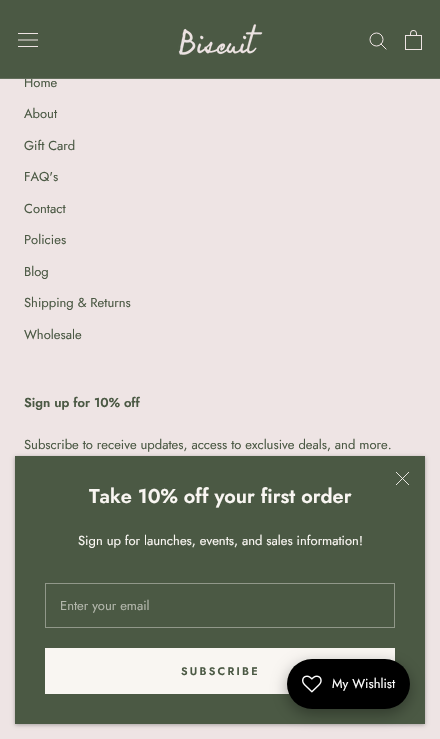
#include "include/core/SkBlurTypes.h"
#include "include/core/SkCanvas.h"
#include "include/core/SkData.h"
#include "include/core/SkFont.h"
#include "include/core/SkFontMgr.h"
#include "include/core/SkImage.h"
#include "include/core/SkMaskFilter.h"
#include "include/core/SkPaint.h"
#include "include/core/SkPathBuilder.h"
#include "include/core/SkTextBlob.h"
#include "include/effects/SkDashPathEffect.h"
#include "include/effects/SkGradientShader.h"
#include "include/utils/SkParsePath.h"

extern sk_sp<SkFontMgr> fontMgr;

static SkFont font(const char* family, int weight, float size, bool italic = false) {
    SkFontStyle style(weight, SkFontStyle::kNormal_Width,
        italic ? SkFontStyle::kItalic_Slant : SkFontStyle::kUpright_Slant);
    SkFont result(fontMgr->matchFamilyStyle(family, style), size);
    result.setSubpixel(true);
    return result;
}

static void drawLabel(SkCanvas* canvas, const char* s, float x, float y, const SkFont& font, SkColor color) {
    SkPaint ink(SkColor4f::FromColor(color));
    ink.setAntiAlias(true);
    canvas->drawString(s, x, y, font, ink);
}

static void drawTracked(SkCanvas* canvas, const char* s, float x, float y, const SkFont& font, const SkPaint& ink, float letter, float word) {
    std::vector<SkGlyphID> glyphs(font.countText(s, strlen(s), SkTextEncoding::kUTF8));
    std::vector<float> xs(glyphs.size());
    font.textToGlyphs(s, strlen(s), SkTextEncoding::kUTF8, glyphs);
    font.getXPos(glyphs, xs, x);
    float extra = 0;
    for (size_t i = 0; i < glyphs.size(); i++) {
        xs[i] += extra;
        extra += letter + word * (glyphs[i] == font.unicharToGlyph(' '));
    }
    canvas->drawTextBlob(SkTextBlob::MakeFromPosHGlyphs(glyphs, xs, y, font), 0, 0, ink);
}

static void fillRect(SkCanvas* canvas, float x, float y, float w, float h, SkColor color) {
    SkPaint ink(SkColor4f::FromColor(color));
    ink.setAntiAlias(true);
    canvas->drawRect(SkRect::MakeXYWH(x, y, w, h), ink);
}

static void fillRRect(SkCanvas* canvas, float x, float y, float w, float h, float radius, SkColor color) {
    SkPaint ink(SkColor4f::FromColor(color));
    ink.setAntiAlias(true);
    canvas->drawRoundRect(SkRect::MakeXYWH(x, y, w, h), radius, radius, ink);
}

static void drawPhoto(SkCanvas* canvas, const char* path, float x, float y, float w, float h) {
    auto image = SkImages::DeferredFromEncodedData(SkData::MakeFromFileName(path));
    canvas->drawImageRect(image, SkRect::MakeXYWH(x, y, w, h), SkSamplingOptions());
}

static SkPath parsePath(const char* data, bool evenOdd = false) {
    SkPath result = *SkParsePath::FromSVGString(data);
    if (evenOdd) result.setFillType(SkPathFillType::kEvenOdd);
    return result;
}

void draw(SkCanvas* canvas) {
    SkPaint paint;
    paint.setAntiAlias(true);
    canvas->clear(0xFFEEE4E4);
    fillRect(canvas, 0, 0, 440, 78, 0xFF4B5944);
    SkFont font1 = font("Jost", 400, 13);
    drawLabel(canvas, "Home", 24, 87, font1, 0xFF4B5944);
    fillRect(canvas, 0, 78, 440, 1, 0xFF636E5C);
    drawPhoto(canvas, "assets/img1.png", 18, 33, 20, 14);
    drawPhoto(canvas, "assets/img2.png", 178, 24, 85, 31);
    paint.setStroke(true);
    paint.setStrokeWidth(1);
    paint.setStrokeCap(SkPaint::kSquare_Cap);
    paint.setColor(0xFFEEE4E4);
    canvas->drawPath(parsePath("M386 49L381 44"), paint);
    paint.setStrokeCap(SkPaint::kButt_Cap);
    canvas->drawCircle(376.5f, 39.5f, 6.5f, paint);
    drawPhoto(canvas, "assets/img3.png", 405, 30, 17, 20);
    drawLabel(canvas, "About", 24, 118, font1, 0xFF4B5944);
    drawLabel(canvas, "Gift Card", 24, 150, font1, 0xFF4B5944);
    drawLabel(canvas, "FAQ's", 24, 181, font1, 0xFF4B5944);
    drawLabel(canvas, "Contact", 24, 213, font1, 0xFF4B5944);
    drawLabel(canvas, "Policies", 24, 244, font1, 0xFF4B5944);
    drawLabel(canvas, "Blog", 24, 276, font1, 0xFF4B5944);
    drawLabel(canvas, "Shipping & Returns", 24, 307, font1, 0xFF4B5944);
    drawLabel(canvas, "Wholesale", 24, 339, font1, 0xFF4B5944);
    SkFont font2 = font("Jost", 600, 13);
    drawLabel(canvas, "Sign up for 10% off", 24, 407, font2, 0xFF4B5944);
    drawLabel(canvas, "Subscribe to receive updates, access to exclusive deals, and more.", 24, 449, font1, 0xFF4B5944);
    paint.setStroke(false);
    paint.setColor(0x4D000000);
    paint.setMaskFilter(SkMaskFilter::MakeBlur(kNormal_SkBlurStyle, 2));
    canvas->drawRect(SkRect::MakeXYWH(15, 457, 410, 268), paint);
    paint.setMaskFilter(nullptr);
    fillRect(canvas, 15, 456, 410, 268, 0xFF4B5944);
    paint.setStroke(true);
    paint.setStrokeWidth(0.9f);
    paint.setColor(0xFFF9F6F2);
    canvas->drawPath(parsePath("M409 472L396 485M409 485L396 472"), paint);
    SkFont font3 = font("Jost", 600, 20);
    drawLabel(canvas, "Take 10% off your first order", 89, 503, font3, 0xFFF9F6F2);
    drawLabel(canvas, "Sign up for launches, events, and sales information!", 78, 545, font1, 0xFFF9F6F2);
    paint.setStrokeWidth(1);
    paint.setColor(0xFF91988A);
    canvas->drawRect(SkRect::MakeXYWH(45.5f, 583.5f, 349, 44), paint);
    drawLabel(canvas, "Enter your email", 60, 610, font1, 0xFFB3B7AC);
    paint.setColor(0xFFF9F6F2);
    canvas->drawRect(SkRect::MakeXYWH(45.5f, 648.5f, 349, 45), paint);
    fillRect(canvas, 46, 649, 348, 44, 0xFFF9F6F2);
    SkFont font4 = font("Jost", 600, 11);
    paint.setStroke(false);
    paint.setColor(0xFF4B5944);
    drawTracked(canvas, "SUBSCRIBE", 181, 675, font4, paint, 2.25f, 0);
    paint.setColor(0x59000000);
    paint.setMaskFilter(SkMaskFilter::MakeBlur(kNormal_SkBlurStyle, 7.5f));
    canvas->drawRoundRect(SkRect::MakeXYWH(287, 664, 123, 50), 25, 25, paint);
    paint.setMaskFilter(nullptr);
    fillRRect(canvas, 287, 659, 123, 50, 25, 0xFF000000);
    drawPhoto(canvas, "assets/img4.png", 302, 675, 20, 18);
    drawLabel(canvas, "My Wishlist", 332, 688, font1, 0xFFFFFFFF);
}
